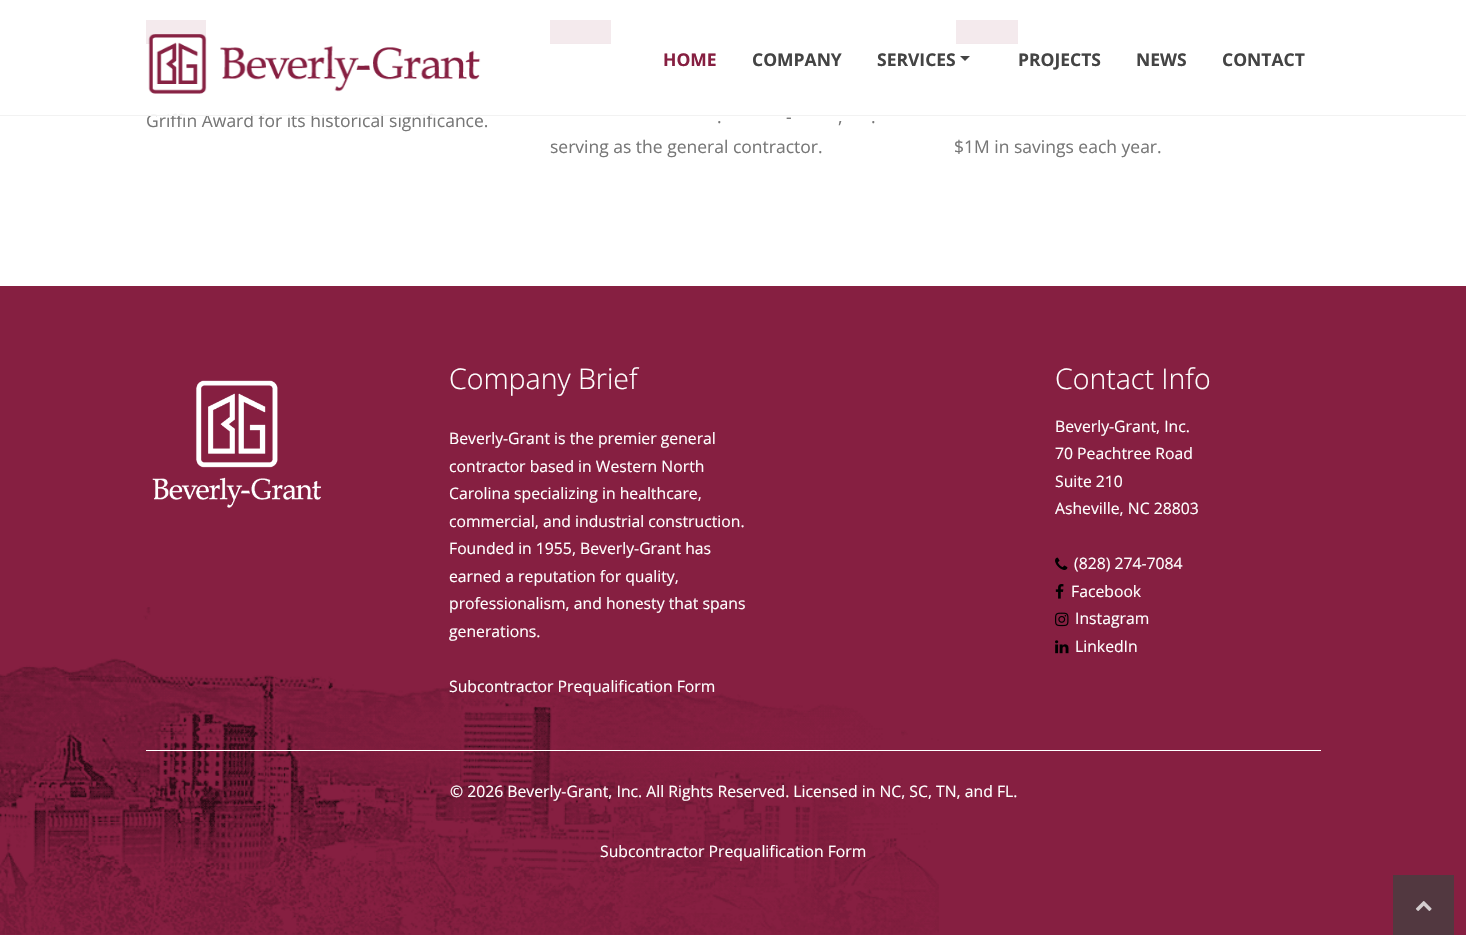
#include "include/core/SkBlurTypes.h"
#include "include/core/SkCanvas.h"
#include "include/core/SkData.h"
#include "include/core/SkFont.h"
#include "include/core/SkFontMgr.h"
#include "include/core/SkImage.h"
#include "include/core/SkMaskFilter.h"
#include "include/core/SkPaint.h"
#include "include/core/SkPathBuilder.h"
#include "include/core/SkTextBlob.h"
#include "include/effects/SkDashPathEffect.h"
#include "include/effects/SkGradientShader.h"
#include "include/utils/SkParsePath.h"

extern sk_sp<SkFontMgr> fontMgr;

static SkFont font(const char* family, int weight, float size, bool italic = false) {
    SkFontStyle style(weight, SkFontStyle::kNormal_Width,
        italic ? SkFontStyle::kItalic_Slant : SkFontStyle::kUpright_Slant);
    SkFont result(fontMgr->matchFamilyStyle(family, style), size);
    result.setSubpixel(true);
    return result;
}

static void drawLabel(SkCanvas* canvas, const char* s, float x, float y, const SkFont& font, SkColor color) {
    SkPaint ink(SkColor4f::FromColor(color));
    ink.setAntiAlias(true);
    canvas->drawString(s, x, y, font, ink);
}

static void fillRect(SkCanvas* canvas, float x, float y, float w, float h, SkColor color) {
    SkPaint ink(SkColor4f::FromColor(color));
    ink.setAntiAlias(true);
    canvas->drawRect(SkRect::MakeXYWH(x, y, w, h), ink);
}

static void drawPhoto(SkCanvas* canvas, const char* path, float x, float y, float w, float h) {
    auto image = SkImages::DeferredFromEncodedData(SkData::MakeFromFileName(path));
    canvas->drawImageRect(image, SkRect::MakeXYWH(x, y, w, h), SkSamplingOptions());
}

static SkPath parsePath(const char* data, bool evenOdd = false) {
    SkPath result = *SkParsePath::FromSVGString(data);
    if (evenOdd) result.setFillType(SkPathFillType::kEvenOdd);
    return result;
}

void draw(SkCanvas* canvas) {
    SkPaint paint;
    paint.setAntiAlias(true);
    canvas->clear(0xFFFFFFFF);
    fillRect(canvas, 146, 0, 60, 16, 0xFFF7F7F7);
    fillRect(canvas, 146, 20, 60, 23, 0xFF861F41);
    fillRect(canvas, 146, 43, 60, 1, 0xFF7D1D3C);
    SkFont font1 = font("Open Sans", 400, 17.5f);
    drawLabel(canvas, "Griffin Award for its historical significance.", 146, 127, font1, 0xFF777777);
    fillRect(canvas, 550, 0, 61, 16, 0xFFF7F7F7);
    fillRect(canvas, 550, 20, 61, 23, 0xFF861F41);
    fillRect(canvas, 550, 43, 61, 1, 0xFF7D1D3C);
    fillRect(canvas, 954, 0, 65, 16, 0xFFF7F7F7);
    fillRect(canvas, 956, 20, 62, 23, 0xFF861F41);
    fillRect(canvas, 956, 43, 62, 1, 0xFF7D1D3C);
    fillRect(canvas, 146, 0, 873, 116, 0xE6FFFFFF);
    fillRect(canvas, 0, 115, 1466, 1, 0xE6F1F1F1);
    drawPhoto(canvas, "assets/img1.png", 148, 34, 333, 60);
    SkFont font2 = font("Open Sans", 700, 17.5f);
    drawLabel(canvas, "HOME", 663, 66, font2, 0xFF861F41);
    drawLabel(canvas, "COMPANY", 752, 66, font2, 0xFF444444);
    drawLabel(canvas, "SERVICES", 877, 66, font2, 0xFF444444);
    paint.setColor(0xFF444444);
    canvas->drawPath(parsePath("M960 56H970L965 61Z"), paint);
    drawLabel(canvas, "PROJECTS", 1018, 66, font2, 0xFF444444);
    drawLabel(canvas, "NEWS", 1136, 66, font2, 0xFF444444);
    drawLabel(canvas, "CONTACT", 1222, 66, font2, 0xFF444444);
    drawLabel(canvas, "-", 786, 123, font1, 0xFF777777);
    drawLabel(canvas, ".", 717, 123, font1, 0xFF777777);
    drawLabel(canvas, ",", 838, 123, font1, 0xFF777777);
    drawLabel(canvas, ".", 871, 123, font1, 0xFF777777);
    drawLabel(canvas, "serving as the general contractor.", 550, 153, font1, 0xFF777777);
    drawLabel(canvas, "$1M in savings each year.", 954, 153, font1, 0xFF777777);
    fillRect(canvas, 0, 286, 1466, 649, 0xFF861F41);
    drawPhoto(canvas, "assets/img2.png", 0, 607, 939, 328);
    drawPhoto(canvas, "assets/img3.png", 152, 380, 169, 128);
    SkFont font3 = font("Open Sans", 300, 28.5f);
    drawLabel(canvas, "Company Brief", 449, 389, font3, 0xFFFFFFFF);
    SkFont font4 = font("Open Sans", 400, 15.75f);
    drawLabel(canvas, "Beverly-Grant is the premier general", 449, 444, font4, 0xFFFFFFFF);
    drawLabel(canvas, "contractor based in Western North", 449, 472, font4, 0xFFFFFFFF);
    drawLabel(canvas, "Carolina specializing in healthcare,", 449, 499, font4, 0xFFFFFFFF);
    drawLabel(canvas, "commercial, and industrial construction.", 449, 527, font4, 0xFFFFFFFF);
    drawLabel(canvas, "Founded in 1955, Beverly-Grant has", 449, 554, font4, 0xFFFFFFFF);
    drawLabel(canvas, "earned a reputation for quality,", 449, 582, font4, 0xFFFFFFFF);
    drawLabel(canvas, "professionalism, and honesty that spans", 449, 609, font4, 0xFFFFFFFF);
    drawLabel(canvas, "generations.", 449, 637, font4, 0xFFFFFFFF);
    drawLabel(canvas, "Subcontractor Prequalification Form", 449, 692, font4, 0xFFFFFFFF);
    drawLabel(canvas, "Contact Info", 1055, 389, font3, 0xFFFFFFFF);
    drawLabel(canvas, "Beverly-Grant, Inc.", 1055, 432, font4, 0xFFFFFFFF);
    drawLabel(canvas, "70 Peachtree Road", 1055, 459, font4, 0xFFFFFFFF);
    drawLabel(canvas, "Suite 210", 1055, 487, font4, 0xFFFFFFFF);
    drawLabel(canvas, "Asheville, NC 28803", 1055, 514, font4, 0xFFFFFFFF);
    drawPhoto(canvas, "assets/img4.png", 1055, 557, 13, 13);
    drawLabel(canvas, "(828) 274-7084", 1074, 569, font4, 0xFFFFFFFF);
    drawPhoto(canvas, "assets/img5.png", 1055, 584, 9, 15);
    drawLabel(canvas, "Facebook", 1071, 597, font4, 0xFFFFFFFF);
    drawPhoto(canvas, "assets/img6.png", 1055, 612, 14, 15);
    drawLabel(canvas, "Instagram", 1075, 624, font4, 0xFFFFFFFF);
    drawPhoto(canvas, "assets/img7.png", 1055, 640, 14, 14);
    drawLabel(canvas, "LinkedIn", 1075, 652, font4, 0xFFFFFFFF);
    fillRect(canvas, 146, 750, 1175, 1, 0xFFFFFFFF);
    drawLabel(canvas, "© 2026 Beverly-Grant, Inc. All Rights Reserved. Licensed in NC, SC, TN, and FL.", 450, 797, font4, 0xFFFFFFFF);
    drawLabel(canvas, "Subcontractor Prequalification Form", 600, 857, font4, 0xFFFFFFFF);
    fillRect(canvas, 1393, 875, 61, 60, 0xFF523840);
    drawPhoto(canvas, "assets/img8.png", 1415, 901, 17, 10);
}
